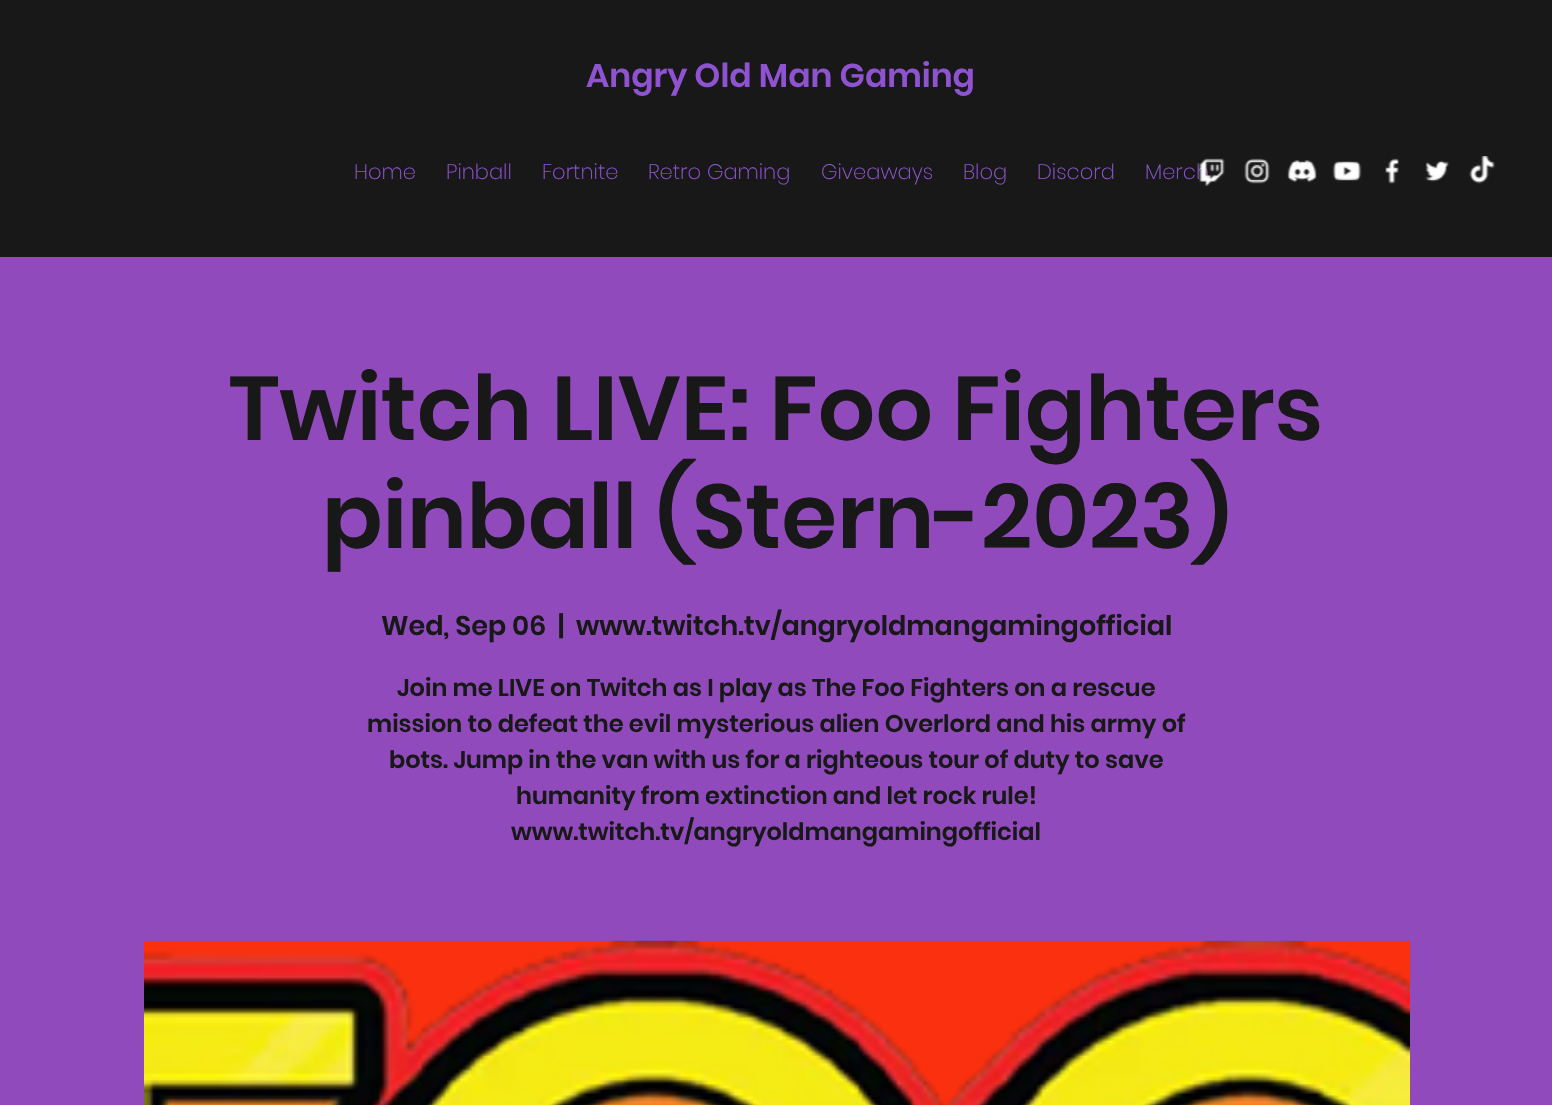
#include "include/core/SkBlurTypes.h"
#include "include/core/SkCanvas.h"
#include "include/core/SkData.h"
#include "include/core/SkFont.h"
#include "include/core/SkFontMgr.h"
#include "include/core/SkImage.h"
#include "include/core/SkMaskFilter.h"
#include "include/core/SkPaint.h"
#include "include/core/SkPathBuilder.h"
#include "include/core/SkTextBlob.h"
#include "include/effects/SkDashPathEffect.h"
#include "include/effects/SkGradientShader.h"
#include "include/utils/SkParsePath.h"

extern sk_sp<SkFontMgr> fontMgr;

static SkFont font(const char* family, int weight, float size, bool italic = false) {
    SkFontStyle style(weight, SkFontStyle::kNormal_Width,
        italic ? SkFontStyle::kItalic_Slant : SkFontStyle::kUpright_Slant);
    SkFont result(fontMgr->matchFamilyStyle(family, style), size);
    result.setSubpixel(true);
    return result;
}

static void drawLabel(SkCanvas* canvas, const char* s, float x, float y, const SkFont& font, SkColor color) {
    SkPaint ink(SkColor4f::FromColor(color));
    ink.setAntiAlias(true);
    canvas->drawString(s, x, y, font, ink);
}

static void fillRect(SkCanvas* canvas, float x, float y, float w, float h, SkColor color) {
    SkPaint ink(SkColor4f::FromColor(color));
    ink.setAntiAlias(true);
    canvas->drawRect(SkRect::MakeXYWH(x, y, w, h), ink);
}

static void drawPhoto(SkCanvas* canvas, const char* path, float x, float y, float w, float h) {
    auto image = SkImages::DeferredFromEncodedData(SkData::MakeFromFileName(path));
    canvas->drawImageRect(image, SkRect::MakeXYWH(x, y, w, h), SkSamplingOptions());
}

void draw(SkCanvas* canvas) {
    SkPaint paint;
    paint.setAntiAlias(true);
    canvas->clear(0xFF904ABC);
    fillRect(canvas, 0, 0, 1552, 257, 0xFF181818);
    SkFont font1 = font("Poppins", 600, 33);
    drawLabel(canvas, "Angry Old Man Gaming", 586, 87, font1, 0xFF8F53D1);
    SkFont font2 = font("Poppins", 200, 21);
    drawLabel(canvas, "Home", 354, 179, font2, 0xFF8F53D1);
    drawLabel(canvas, "Pinball", 446, 179, font2, 0xFF8F53D1);
    drawLabel(canvas, "Fortnite", 542, 179, font2, 0xFF8F53D1);
    drawLabel(canvas, "Retro Gaming", 648, 179, font2, 0xFF8F53D1);
    drawLabel(canvas, "Giveaways", 821, 179, font2, 0xFF8F53D1);
    drawLabel(canvas, "Blog", 963, 179, font2, 0xFF8F53D1);
    drawLabel(canvas, "Discord", 1037, 179, font2, 0xFF8F53D1);
    drawLabel(canvas, "Merch", 1145, 179, font2, 0xFF8F53D1);
    drawPhoto(canvas, "assets/img1.png", 1199, 158, 26, 28);
    drawPhoto(canvas, "assets/img2.png", 1244, 158, 26, 26);
    drawPhoto(canvas, "assets/img3.png", 1287, 160, 30, 22);
    drawPhoto(canvas, "assets/img4.png", 1332, 161, 30, 20);
    drawPhoto(canvas, "assets/img5.png", 1385, 158, 14, 26);
    drawPhoto(canvas, "assets/img6.png", 1425, 160, 25, 22);
    drawPhoto(canvas, "assets/img7.png", 1469, 156, 26, 28);
    SkFont font3 = font("Poppins", 600, 90);
    drawLabel(canvas, "Twitch LIVE: Foo Fighters", 229, 440, font3, 0xFF181818);
    drawLabel(canvas, "pinball (Stern-2023)", 322, 548, font3, 0xFF181818);
    SkFont font4 = font("Poppins", 600, 27);
    drawLabel(canvas, "Wed, Sep 06", 381, 635, font4, 0xFF181818);
    drawLabel(canvas, "|", 558, 635, font4, 0xFF181818);
    drawLabel(canvas, "www.twitch.tv/angryoldmangamingofficial", 576, 635, font4, 0xFF181818);
    SkFont font5 = font("Poppins", 600, 24);
    drawLabel(canvas, "Join me LIVE on Twitch as I play as The Foo Fighters on a rescue", 397, 696, font5, 0xFF181818);
    drawLabel(canvas, "mission to defeat the evil mysterious alien Overlord and his army of", 367, 732, font5, 0xFF181818);
    drawLabel(canvas, "bots. Jump in the van with us for a righteous tour of duty to save", 389, 768, font5, 0xFF181818);
    drawLabel(canvas, "humanity from extinction and let rock rule!", 516, 804, font5, 0xFF181818);
    drawLabel(canvas, "www.twitch.tv/angryoldmangamingofficial", 511, 840, font5, 0xFF181818);
    fillRect(canvas, 144, 941, 1266, 164, 0xFFFA300F);
    drawPhoto(canvas, "assets/img8.png", 144, 940, 1266, 165);
}
